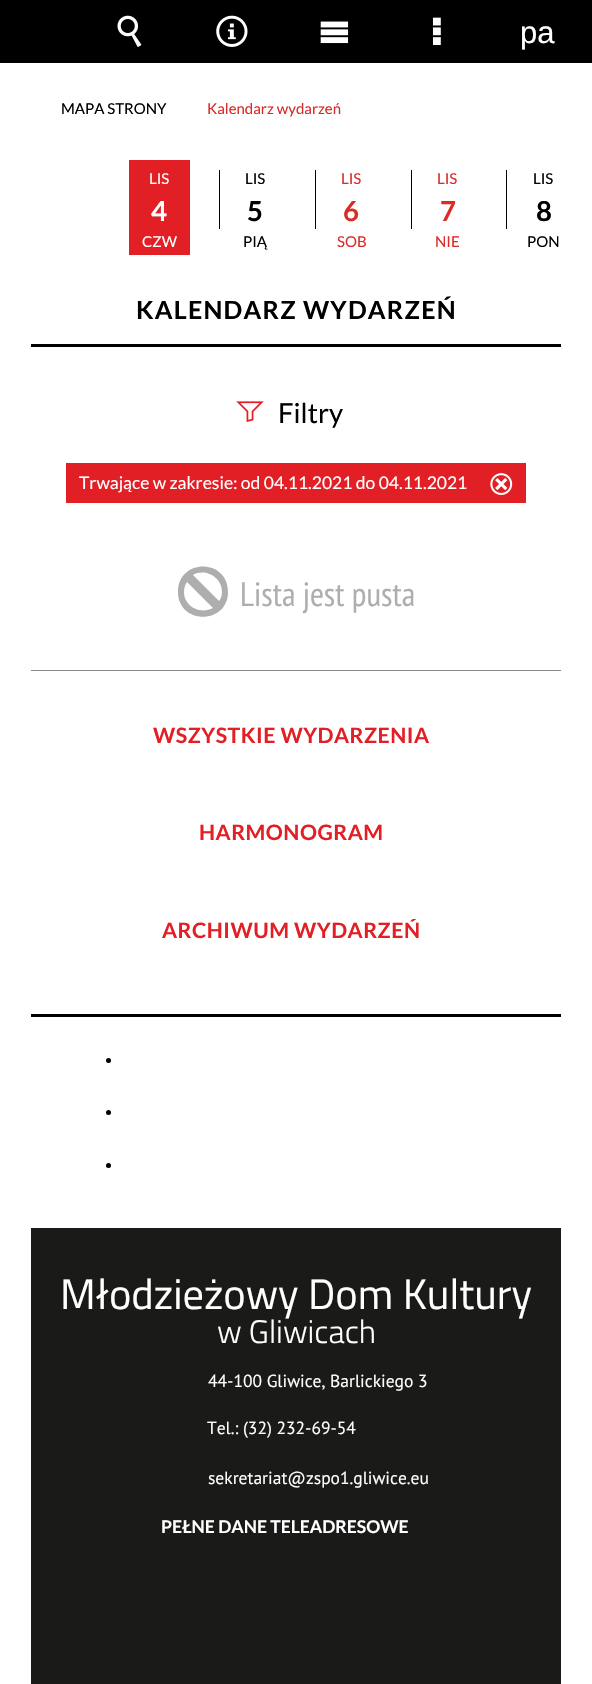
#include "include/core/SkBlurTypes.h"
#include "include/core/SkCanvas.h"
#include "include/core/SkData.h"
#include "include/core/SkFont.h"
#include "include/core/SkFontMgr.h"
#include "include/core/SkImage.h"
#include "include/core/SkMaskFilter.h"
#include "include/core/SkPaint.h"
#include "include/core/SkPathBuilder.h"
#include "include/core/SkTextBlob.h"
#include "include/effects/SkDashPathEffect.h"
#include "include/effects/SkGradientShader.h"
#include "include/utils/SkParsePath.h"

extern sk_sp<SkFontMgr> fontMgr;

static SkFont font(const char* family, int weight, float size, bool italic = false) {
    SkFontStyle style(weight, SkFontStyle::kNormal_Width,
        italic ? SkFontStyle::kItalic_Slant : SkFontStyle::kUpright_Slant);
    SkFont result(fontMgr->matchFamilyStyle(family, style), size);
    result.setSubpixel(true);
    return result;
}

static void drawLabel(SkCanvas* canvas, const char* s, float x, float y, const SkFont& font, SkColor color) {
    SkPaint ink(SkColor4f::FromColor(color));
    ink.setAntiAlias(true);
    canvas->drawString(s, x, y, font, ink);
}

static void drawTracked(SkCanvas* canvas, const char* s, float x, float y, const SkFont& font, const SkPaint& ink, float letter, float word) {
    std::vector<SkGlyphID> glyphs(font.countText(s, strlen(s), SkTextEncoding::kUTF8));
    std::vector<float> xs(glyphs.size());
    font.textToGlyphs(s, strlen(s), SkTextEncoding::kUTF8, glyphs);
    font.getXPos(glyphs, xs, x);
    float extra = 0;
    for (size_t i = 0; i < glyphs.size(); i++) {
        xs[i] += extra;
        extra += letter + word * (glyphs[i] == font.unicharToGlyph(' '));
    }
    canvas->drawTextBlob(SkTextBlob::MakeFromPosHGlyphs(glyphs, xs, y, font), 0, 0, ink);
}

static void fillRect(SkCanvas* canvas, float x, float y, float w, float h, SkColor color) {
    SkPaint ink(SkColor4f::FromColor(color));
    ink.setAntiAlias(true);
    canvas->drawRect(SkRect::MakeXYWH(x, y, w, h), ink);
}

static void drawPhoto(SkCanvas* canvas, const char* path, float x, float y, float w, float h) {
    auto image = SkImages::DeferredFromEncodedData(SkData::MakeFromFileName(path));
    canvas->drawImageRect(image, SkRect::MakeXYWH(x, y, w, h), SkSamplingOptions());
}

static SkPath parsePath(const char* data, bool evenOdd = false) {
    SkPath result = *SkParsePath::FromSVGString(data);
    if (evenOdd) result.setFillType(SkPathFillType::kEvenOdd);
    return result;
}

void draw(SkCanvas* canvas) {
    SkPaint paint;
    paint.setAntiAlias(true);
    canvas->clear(0xFFFFFFFF);
    fillRect(canvas, 0, 0, 592, 63, 0xFF000000);
    drawPhoto(canvas, "assets/img1.png", 117, 15, 25, 32);
    drawPhoto(canvas, "assets/img2.png", 216, 15, 32, 32);
    drawPhoto(canvas, "assets/img3.png", 320, 21, 29, 23);
    drawPhoto(canvas, "assets/img4.png", 432, 17, 9, 28);
    SkFont font1 = font("Liberation Sans", 400, 31);
    drawLabel(canvas, "pa", 520, 43, font1, 0xFFFFFFFF);
    SkFont font2 = font("Lato", 400, 15);
    drawLabel(canvas, "MAPA STRONY", 61, 114, font2, 0xFF000000);
    drawLabel(canvas, "Kalendarz wydarzeń", 207, 114, font2, 0xFFD92C26);
    fillRect(canvas, 129, 160, 61, 95, 0xFFE21F25);
    drawLabel(canvas, "LIS", 149, 184, font2, 0xFFFFFFFF);
    SkFont font3 = font("Lato", 700, 27.5f);
    drawLabel(canvas, "4", 151, 221, font3, 0xFFFFFFFF);
    drawLabel(canvas, "CZW", 142, 247, font2, 0xFFFFFFFF);
    fillRect(canvas, 219, 170, 1, 59, 0xFF000000);
    drawLabel(canvas, "LIS", 245, 184, font2, 0xFF000000);
    drawLabel(canvas, "5", 247, 221, font3, 0xFF000000);
    drawLabel(canvas, "PIĄ", 243, 247, font2, 0xFF000000);
    fillRect(canvas, 315, 170, 1, 59, 0xFF000000);
    drawLabel(canvas, "LIS", 341, 184, font2, 0xFFD92C26);
    drawLabel(canvas, "6", 343, 221, font3, 0xFFD92C26);
    drawLabel(canvas, "SOB", 337, 247, font2, 0xFFD92C26);
    fillRect(canvas, 411, 170, 1, 59, 0xFF000000);
    drawLabel(canvas, "LIS", 437, 184, font2, 0xFFD92C26);
    drawLabel(canvas, "7", 440, 221, font3, 0xFFD92C26);
    drawLabel(canvas, "NIE", 435, 247, font2, 0xFFD92C26);
    fillRect(canvas, 506, 170, 1, 59, 0xFF000000);
    drawLabel(canvas, "LIS", 533, 184, font2, 0xFF000000);
    drawLabel(canvas, "8", 536, 221, font3, 0xFF000000);
    drawLabel(canvas, "PON", 527, 247, font2, 0xFF000000);
    fillRect(canvas, 31, 344, 530, 3, 0xFF000000);
    SkFont font4 = font("Lato", 700, 25);
    paint.setColor(0xFF000000);
    drawTracked(canvas, "KALENDARZ WYDARZEŃ", 136, 319, font4, paint, 1.25f, 0);
    drawPhoto(canvas, "assets/img5.png", 236, 401, 28, 21);
    SkFont font5 = font("Lato", 400, 27.5f);
    drawLabel(canvas, "Filtry", 278, 423, font5, 0xFF000000);
    fillRect(canvas, 66, 463, 460, 40, 0xFFE21F25);
    SkFont font6 = font("Lato", 400, 17.5f);
    drawLabel(canvas, "Trwające w zakresie: od 04.11.2021 do 04.11.2021", 79, 489, font6, 0xFFFFFFFF);
    drawPhoto(canvas, "assets/img6.png", 490, 473, 23, 22);
    paint.setColor(0xFFAEAEAE);
    canvas->drawPath(parsePath("M178 592C178 558 228 558 228 592C228 625 178 625 178 592ZM222 592C222 577 205 568 193 575L219 601C221 599 222 595 222 592ZM184 592C184 606 200 615 213 608L187 582C185 585 184 588 184 592Z"), paint);
    SkFont font7 = font("PT Sans Narrow", 400, 33.75f);
    drawLabel(canvas, "Lista jest pusta", 240, 606, font7, 0xFFAEAEAE);
    fillRect(canvas, 31, 670, 530, 1, 0xFF898989);
    SkFont font8 = font("Lato", 700, 21.25f);
    paint.setColor(0xFFE21F25);
    drawTracked(canvas, "WSZYSTKIE WYDARZENIA", 153, 743, font8, paint, 0.5f, 0);
    drawTracked(canvas, "HARMONOGRAM", 199, 840, font8, paint, 0.5f, 0);
    drawTracked(canvas, "ARCHIWUM WYDARZEŃ", 162, 938, font8, paint, 0.5f, 0);
    fillRect(canvas, 31, 1014, 530, 3, 0xFF000000);
    paint.setColor(0xFF000000);
    canvas->drawCircle(108.5f, 1060.5f, 2.5f, paint);
    canvas->drawCircle(108.5f, 1112.5f, 2.5f, paint);
    canvas->drawCircle(108.5f, 1165.5f, 2.5f, paint);
    fillRect(canvas, 31, 1228, 530, 456, 0xFF1A1A18);
    SkFont font9 = font("Titillium Web", 400, 42.5f);
    drawLabel(canvas, "Młodzieżowy Dom Kultury", 60, 1309, font9, 0xFFFFFFFF);
    SkFont font10 = font("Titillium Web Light", 300, 32.5f);
    drawLabel(canvas, "w Gliwicach", 217, 1343, font10, 0xFFFFFFFF);
    SkFont font11 = font("PT Sans", 400, 17.5f);
    drawLabel(canvas, "44-100 Gliwice, Barlickiego 3", 208, 1387, font11, 0xFFFFFFFF);
    drawLabel(canvas, "Tel.: (32) 232-69-54", 207, 1434, font11, 0xFFFFFFFF);
    drawLabel(canvas, "sekretariat@zspo1.gliwice.eu", 208, 1484, font11, 0xFFFFFFFF);
    SkFont font12 = font("Lato", 700, 17.5f);
    drawLabel(canvas, "PEŁNE DANE TELEADRESOWE", 161, 1533, font12, 0xFFFFFFFF);
}
